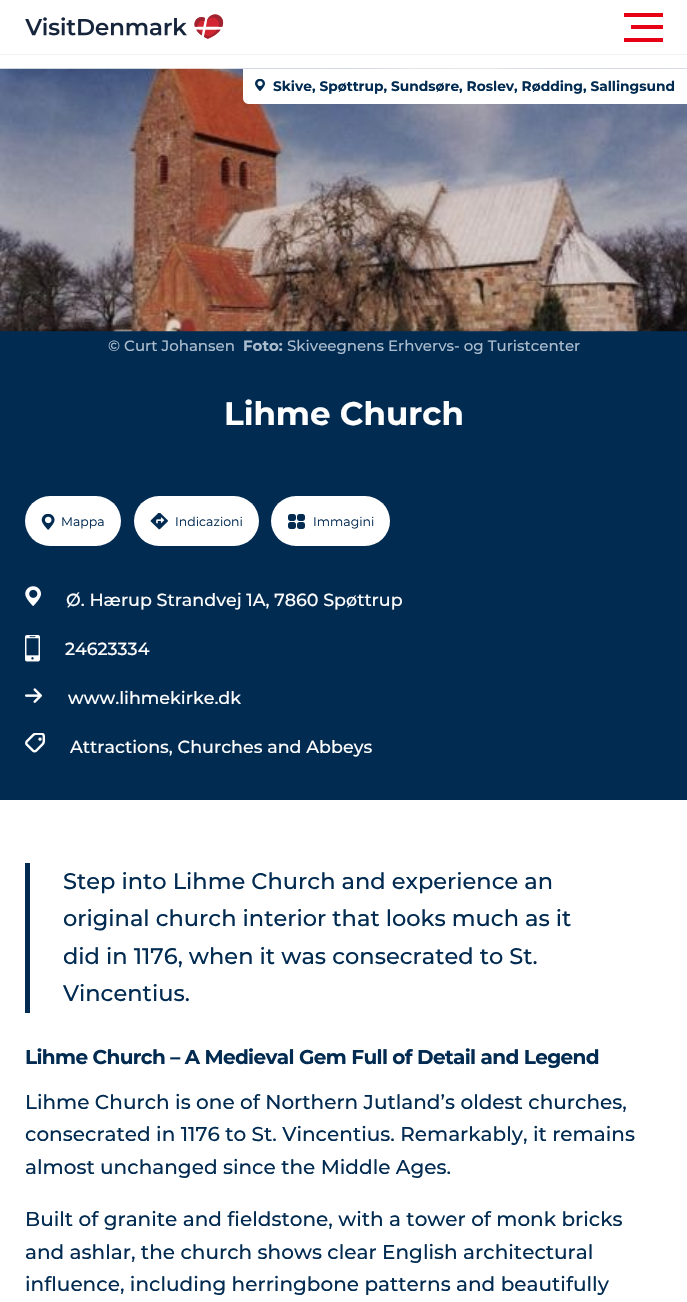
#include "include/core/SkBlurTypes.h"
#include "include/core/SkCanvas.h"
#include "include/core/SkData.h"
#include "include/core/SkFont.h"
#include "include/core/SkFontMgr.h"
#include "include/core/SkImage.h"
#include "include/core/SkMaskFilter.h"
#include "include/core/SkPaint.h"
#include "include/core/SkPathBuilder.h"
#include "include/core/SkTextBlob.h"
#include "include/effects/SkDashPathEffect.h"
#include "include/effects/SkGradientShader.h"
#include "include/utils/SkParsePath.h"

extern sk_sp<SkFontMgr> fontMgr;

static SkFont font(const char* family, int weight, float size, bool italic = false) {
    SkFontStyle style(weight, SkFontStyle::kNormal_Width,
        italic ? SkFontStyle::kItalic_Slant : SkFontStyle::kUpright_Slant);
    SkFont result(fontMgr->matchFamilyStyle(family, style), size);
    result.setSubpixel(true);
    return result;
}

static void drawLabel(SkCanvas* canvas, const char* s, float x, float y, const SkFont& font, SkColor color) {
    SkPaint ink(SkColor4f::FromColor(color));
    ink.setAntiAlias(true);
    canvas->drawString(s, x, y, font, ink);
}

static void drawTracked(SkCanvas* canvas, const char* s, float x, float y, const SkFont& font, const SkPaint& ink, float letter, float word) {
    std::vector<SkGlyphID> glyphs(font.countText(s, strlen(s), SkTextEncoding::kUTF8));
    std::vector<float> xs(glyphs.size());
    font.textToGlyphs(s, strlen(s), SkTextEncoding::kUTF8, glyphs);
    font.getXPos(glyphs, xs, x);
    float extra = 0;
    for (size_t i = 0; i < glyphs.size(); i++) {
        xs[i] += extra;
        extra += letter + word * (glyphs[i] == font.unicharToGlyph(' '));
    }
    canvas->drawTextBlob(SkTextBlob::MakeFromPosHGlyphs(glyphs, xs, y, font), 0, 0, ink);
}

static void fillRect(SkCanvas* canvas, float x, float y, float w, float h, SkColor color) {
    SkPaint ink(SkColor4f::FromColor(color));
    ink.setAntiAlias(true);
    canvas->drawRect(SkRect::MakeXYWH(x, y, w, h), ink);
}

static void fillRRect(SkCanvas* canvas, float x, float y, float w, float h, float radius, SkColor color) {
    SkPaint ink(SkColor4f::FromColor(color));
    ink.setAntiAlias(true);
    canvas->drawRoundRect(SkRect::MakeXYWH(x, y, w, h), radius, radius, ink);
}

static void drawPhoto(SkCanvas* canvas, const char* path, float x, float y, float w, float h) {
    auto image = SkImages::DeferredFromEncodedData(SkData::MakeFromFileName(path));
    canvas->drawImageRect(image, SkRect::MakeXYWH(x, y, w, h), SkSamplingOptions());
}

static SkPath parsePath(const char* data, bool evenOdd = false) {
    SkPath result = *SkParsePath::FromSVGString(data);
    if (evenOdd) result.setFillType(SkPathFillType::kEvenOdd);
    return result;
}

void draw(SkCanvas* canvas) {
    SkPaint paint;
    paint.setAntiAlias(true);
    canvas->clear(0xFFFFFFFF);
    fillRect(canvas, 0, 54, 687, 1, 0xFFF0F1F3);
    drawPhoto(canvas, "assets/img1.png", 25, 14, 199, 25);
    fillRect(canvas, 624, 13, 39, 4, 0xFFE70013);
    fillRect(canvas, 631, 25, 32, 4, 0xFFE70013);
    fillRect(canvas, 624, 38, 39, 4, 0xFFE70013);
    fillRect(canvas, 0, 331, 687, 469, 0xFF022B52);
    drawPhoto(canvas, "assets/img2.png", 0, 68, 687, 264);
    paint.setColor(0xFFFFFFFF);
    canvas->drawPath(parsePath("M243 69H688V104H249C245.5 104 243 101.5 243 98Z"), paint);
    drawPhoto(canvas, "assets/img3.png", 255, 79, 10, 12);
    SkFont font1 = font("Montserrat", 700, 13.75f);
    drawLabel(canvas, "Skive, Spøttrup, Sundsøre, Roslev, Rødding, Sallingsund", 273, 91, font1, 0xFF022B52);
    SkFont font2 = font("Montserrat", 500, 15);
    drawLabel(canvas, "© Curt Johansen", 108, 351, font2, 0xFFAABCCD);
    SkFont font3 = font("Montserrat", 700, 15);
    drawLabel(canvas, "Foto:", 243, 351, font3, 0xFFAABCCD);
    drawLabel(canvas, "Skiveegnens Erhvervs- og Turistcenter", 287, 351, font2, 0xFFAABCCD);
    SkFont font4 = font("Montserrat", 700, 32.5f);
    drawLabel(canvas, "Lihme Church", 224, 425, font4, 0xFFFFFFFF);
    fillRRect(canvas, 25, 496, 96, 50, 25, 0xFFFFFFFF);
    drawPhoto(canvas, "assets/img4.png", 41, 514, 14, 16);
    SkFont font5 = font("Montserrat", 400, 12.5f);
    drawLabel(canvas, "Mappa", 61, 526, font5, 0xFF022B52);
    fillRRect(canvas, 134, 496, 125, 50, 25, 0xFFFFFFFF);
    drawPhoto(canvas, "assets/img5.png", 150, 513, 18, 17);
    drawLabel(canvas, "Indicazioni", 175, 526, font5, 0xFF022B52);
    fillRRect(canvas, 271, 496, 119, 50, 25, 0xFFFFFFFF);
    drawPhoto(canvas, "assets/img6.png", 288, 514, 17, 15);
    drawLabel(canvas, "Immagini", 313, 526, font5, 0xFF022B52);
    drawPhoto(canvas, "assets/img7.png", 25, 586, 16, 20);
    SkFont font6 = font("Montserrat", 500, 17.5f);
    drawLabel(canvas, "Ø. Hærup Strandvej 1A, 7860 Spøttrup", 66, 606, font6, 0xFFFFFFFF);
    drawPhoto(canvas, "assets/img8.png", 25, 635, 15, 27);
    drawLabel(canvas, "24623334", 65, 655, font6, 0xFFFFFFFF);
    drawPhoto(canvas, "assets/img9.png", 25, 688, 17, 15);
    drawLabel(canvas, "www.lihmekirke.dk", 68, 704, font6, 0xFFFFFFFF);
    drawPhoto(canvas, "assets/img10.png", 25, 733, 20, 20);
    drawLabel(canvas, "Attractions, Churches and Abbeys", 70, 753, font6, 0xFFFFFFFF);
    fillRect(canvas, 25, 863, 5, 150, 0xFF022B52);
    SkFont font7 = font("Montserrat", 500, 22.5f);
    drawLabel(canvas, "Step into Lihme Church and experience an", 63, 889, font7, 0xFF022B52);
    drawLabel(canvas, "original church interior that looks much as it", 63, 926, font7, 0xFF022B52);
    drawLabel(canvas, "did in 1176, when it was consecrated to St.", 63, 964, font7, 0xFF022B52);
    drawLabel(canvas, "Vincentius.", 63, 1001, font7, 0xFF022B52);
    SkFont font8 = font("Montserrat", 700, 20);
    paint.setColor(0xFF022B52);
    drawTracked(canvas, "Lihme Church – A Medieval Gem Full of Detail and Legend", 25, 1064, font8, paint, -0.62f, 0);
    SkFont font9 = font("Montserrat", 500, 20);
    drawLabel(canvas, "Lihme Church is one of Northern Jutland’s oldest churches,", 25, 1109, font9, 0xFF022B52);
    drawLabel(canvas, "consecrated in 1176 to St. Vincentius. Remarkably, it remains", 25, 1141, font9, 0xFF022B52);
    drawLabel(canvas, "almost unchanged since the Middle Ages.", 25, 1174, font9, 0xFF022B52);
    drawLabel(canvas, "Built of granite and fieldstone, with a tower of monk bricks", 25, 1226, font9, 0xFF022B52);
    drawLabel(canvas, "and ashlar, the church shows clear English architectural", 25, 1259, font9, 0xFF022B52);
    drawLabel(canvas, "influence, including herringbone patterns and beautifully", 25, 1291, font9, 0xFF022B52);
}
